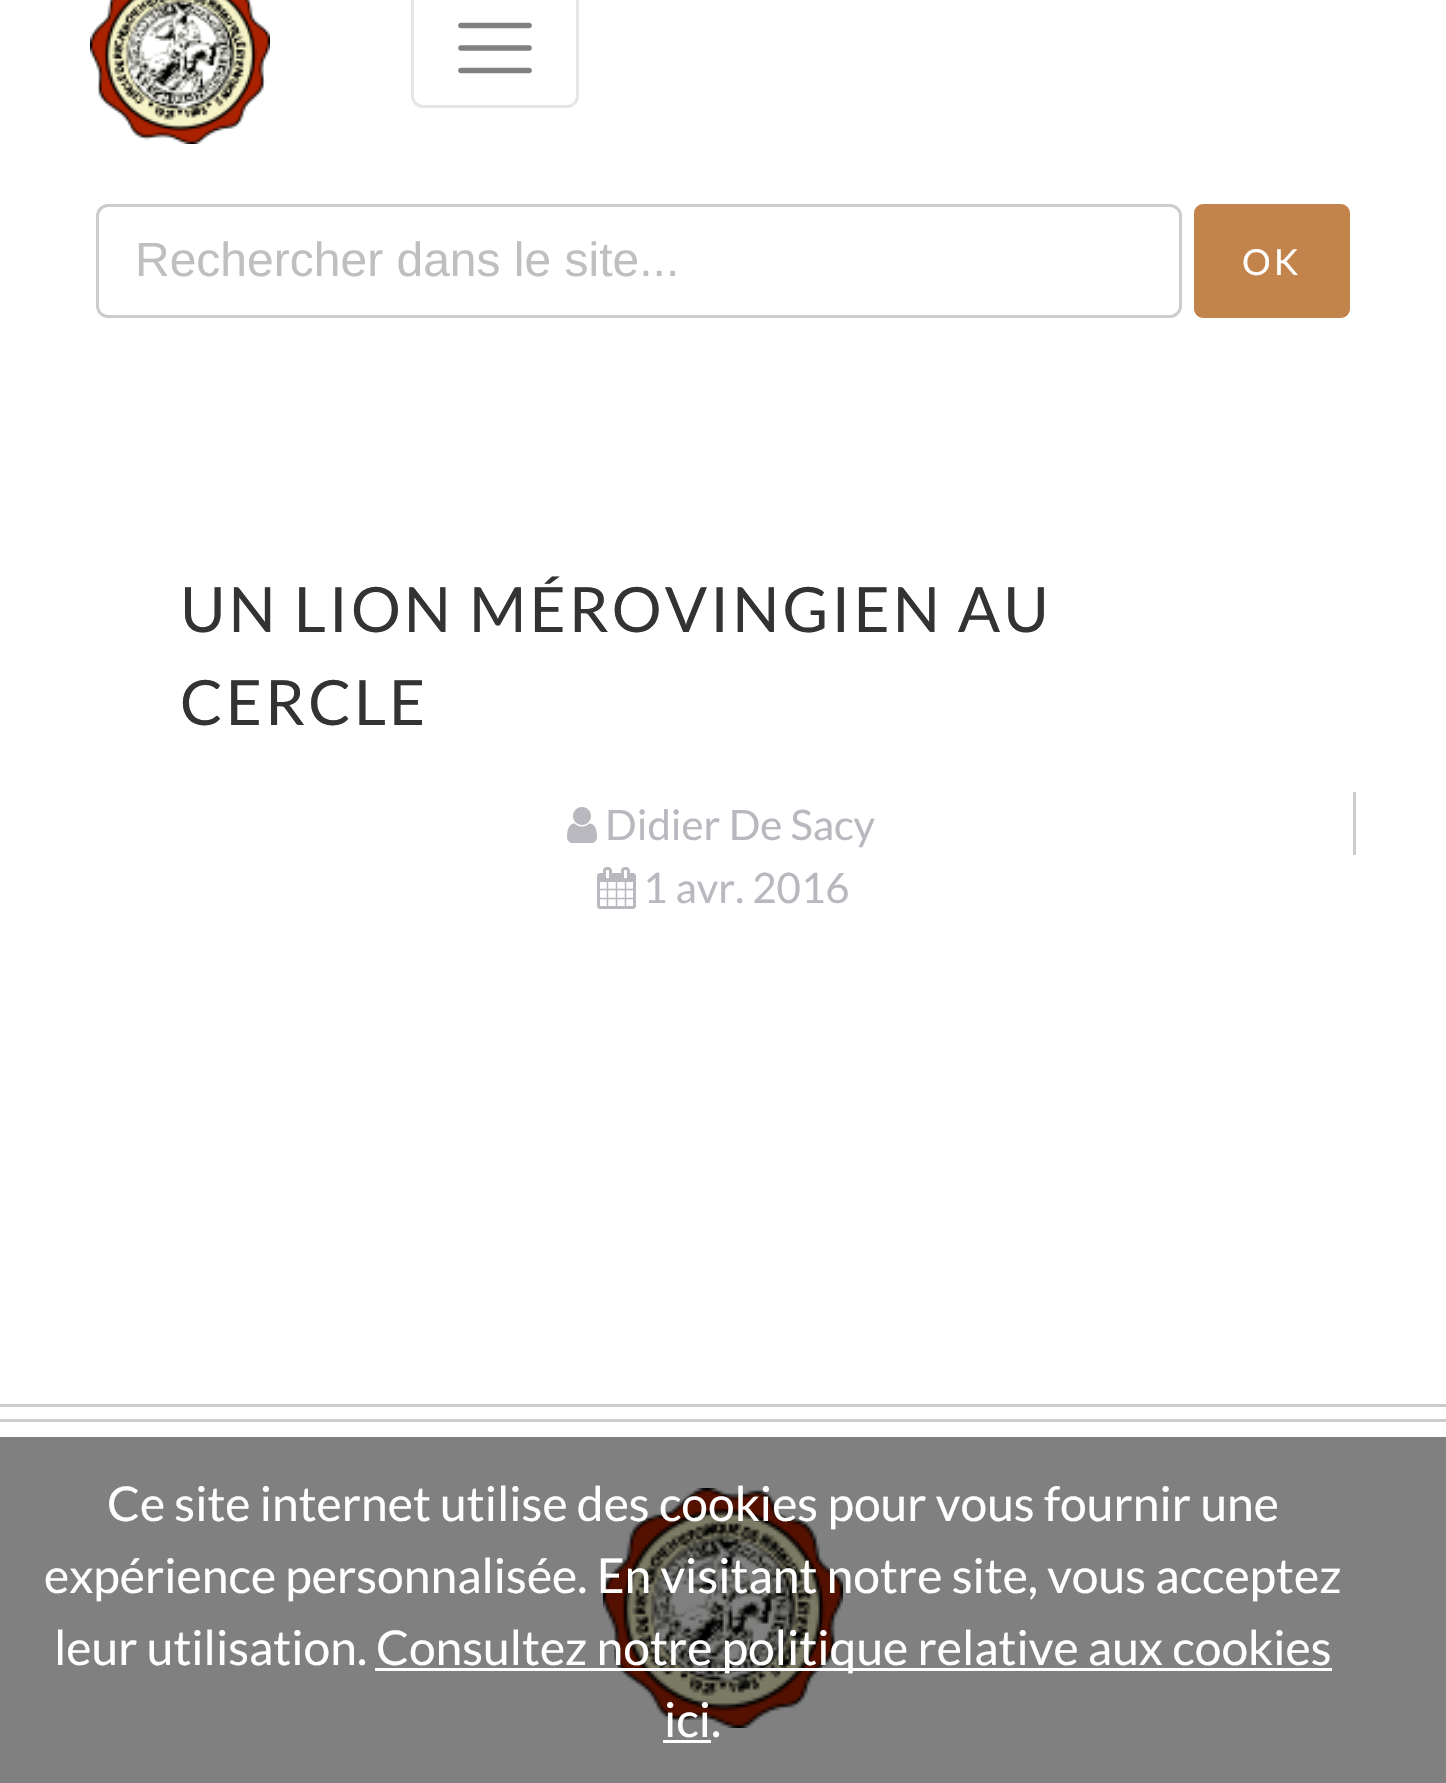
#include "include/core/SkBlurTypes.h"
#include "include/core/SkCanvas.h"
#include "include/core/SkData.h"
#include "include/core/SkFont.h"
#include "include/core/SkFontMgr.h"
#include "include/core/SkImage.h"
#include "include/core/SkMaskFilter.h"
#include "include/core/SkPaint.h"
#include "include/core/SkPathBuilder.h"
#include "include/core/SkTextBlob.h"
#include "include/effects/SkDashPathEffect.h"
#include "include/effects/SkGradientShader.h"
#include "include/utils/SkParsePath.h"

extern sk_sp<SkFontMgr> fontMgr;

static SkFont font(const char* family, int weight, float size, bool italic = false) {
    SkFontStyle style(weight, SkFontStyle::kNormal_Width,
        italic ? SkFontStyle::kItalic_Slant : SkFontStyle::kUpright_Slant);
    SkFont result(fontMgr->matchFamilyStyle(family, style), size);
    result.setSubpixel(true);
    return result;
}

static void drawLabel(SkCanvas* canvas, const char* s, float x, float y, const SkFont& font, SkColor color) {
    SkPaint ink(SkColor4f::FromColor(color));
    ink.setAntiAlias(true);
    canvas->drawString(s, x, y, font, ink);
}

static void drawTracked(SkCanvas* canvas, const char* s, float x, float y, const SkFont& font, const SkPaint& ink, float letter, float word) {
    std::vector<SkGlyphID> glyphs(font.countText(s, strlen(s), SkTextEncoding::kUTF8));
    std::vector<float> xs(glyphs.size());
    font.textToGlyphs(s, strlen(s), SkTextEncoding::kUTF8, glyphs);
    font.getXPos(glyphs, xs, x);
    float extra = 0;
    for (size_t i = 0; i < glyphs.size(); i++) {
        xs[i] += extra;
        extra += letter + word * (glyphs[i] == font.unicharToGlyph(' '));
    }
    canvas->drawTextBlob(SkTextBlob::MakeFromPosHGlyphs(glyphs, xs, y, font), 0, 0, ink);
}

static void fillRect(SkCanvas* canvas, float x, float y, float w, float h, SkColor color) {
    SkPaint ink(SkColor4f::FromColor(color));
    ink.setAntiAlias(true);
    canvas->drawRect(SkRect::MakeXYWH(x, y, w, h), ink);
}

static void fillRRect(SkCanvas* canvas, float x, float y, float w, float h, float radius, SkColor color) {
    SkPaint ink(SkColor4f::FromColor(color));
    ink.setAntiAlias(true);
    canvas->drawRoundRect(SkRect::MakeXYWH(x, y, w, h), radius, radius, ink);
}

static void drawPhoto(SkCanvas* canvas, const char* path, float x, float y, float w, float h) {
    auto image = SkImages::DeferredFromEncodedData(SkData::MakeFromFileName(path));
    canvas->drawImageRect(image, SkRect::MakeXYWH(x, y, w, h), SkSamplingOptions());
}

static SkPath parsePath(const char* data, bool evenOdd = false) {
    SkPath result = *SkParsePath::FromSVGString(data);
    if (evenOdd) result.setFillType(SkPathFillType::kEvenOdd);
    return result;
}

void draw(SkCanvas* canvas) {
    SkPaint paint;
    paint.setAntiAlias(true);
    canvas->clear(0xFFFFFFFF);
    fillRect(canvas, 0, 1437, 1446, 346, 0xFF808080);
    drawPhoto(canvas, "assets/img1.png", 90, 0, 180, 144);
    paint.setStroke(true);
    paint.setStrokeWidth(3);
    paint.setColor(0xFFE6E6E6);
    canvas->drawRoundRect(SkRect::MakeXYWH(412.5f, -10.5f, 165, 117), 10.5f, 10.5f, paint);
    paint.setStrokeWidth(5.6f);
    paint.setStrokeCap(SkPaint::kRound_Cap);
    paint.setColor(0xFF808080);
    canvas->drawPath(parsePath("M461 25.5H529M461 48H529M461 70.5H529"), paint);
    paint.setStrokeWidth(3);
    paint.setStrokeCap(SkPaint::kButt_Cap);
    paint.setColor(0xFFCCCCCC);
    canvas->drawRoundRect(SkRect::MakeXYWH(97.5f, 205.5f, 1083, 111), 10.5f, 10.5f, paint);
    SkFont font1 = font("Liberation Sans", 400, 48);
    drawLabel(canvas, "Rechercher dans le site...", 135, 276, font1, 0xFFBFBFBF);
    fillRRect(canvas, 1194, 204, 156, 114, 9, 0xFFC3844C);
    SkFont font2 = font("Lato", 400, 36);
    paint.setStroke(false);
    paint.setColor(0xFFFFFFFF);
    drawTracked(canvas, "OK", 1242, 275, font2, paint, 3, 0);
    SkFont font3 = font("Lato", 400, 62.4f);
    paint.setColor(0xFF333333);
    drawTracked(canvas, "UN LION MÉROVINGIEN AU", 180, 632, font3, paint, 3, 0);
    drawTracked(canvas, "CERCLE", 180, 725, font3, paint, 3, 0);
    fillRect(canvas, 1353, 792, 3, 63, 0xFFCCCCCC);
    drawPhoto(canvas, "assets/img2.png", 567, 807, 30, 36);
    SkFont font4 = font("Lato", 400, 42);
    drawLabel(canvas, "Didier De Sacy", 605, 840, font4, 0xFFB8B8BE);
    drawPhoto(canvas, "assets/img3.png", 597, 867, 39, 42);
    drawLabel(canvas, "1 avr. 2016", 643, 903, font4, 0xFFB8B8BE);
    fillRect(canvas, 0, 1404, 1446, 3, 0xFFCCCCCC);
    fillRect(canvas, 0, 1419, 1446, 3, 0xFFCCCCCC);
    drawPhoto(canvas, "assets/img4.png", 603, 1488, 240, 240);
    SkFont font5 = font("Lato", 400, 48);
    drawLabel(canvas, "Ce site internet utilise des cookies pour vous fournir une", 107, 1521, font5, 0xFFFFFFFF);
    drawLabel(canvas, "expérience personnalisée. En visitant notre site, vous acceptez", 44, 1593, font5, 0xFFFFFFFF);
    drawLabel(canvas, "leur utilisation.", 54, 1665, font5, 0xFFFFFFFF);
    fillRect(canvas, 375, 1668, 957, 3, 0xFFFFFFFF);
    drawLabel(canvas, "Consultez notre politique relative aux cookies", 376, 1665, font5, 0xFFFFFFFF);
    drawLabel(canvas, "ici.", 664, 1737, font5, 0xFFFFFFFF);
    fillRect(canvas, 663, 1740, 48, 3, 0xFFFFFFFF);
}
